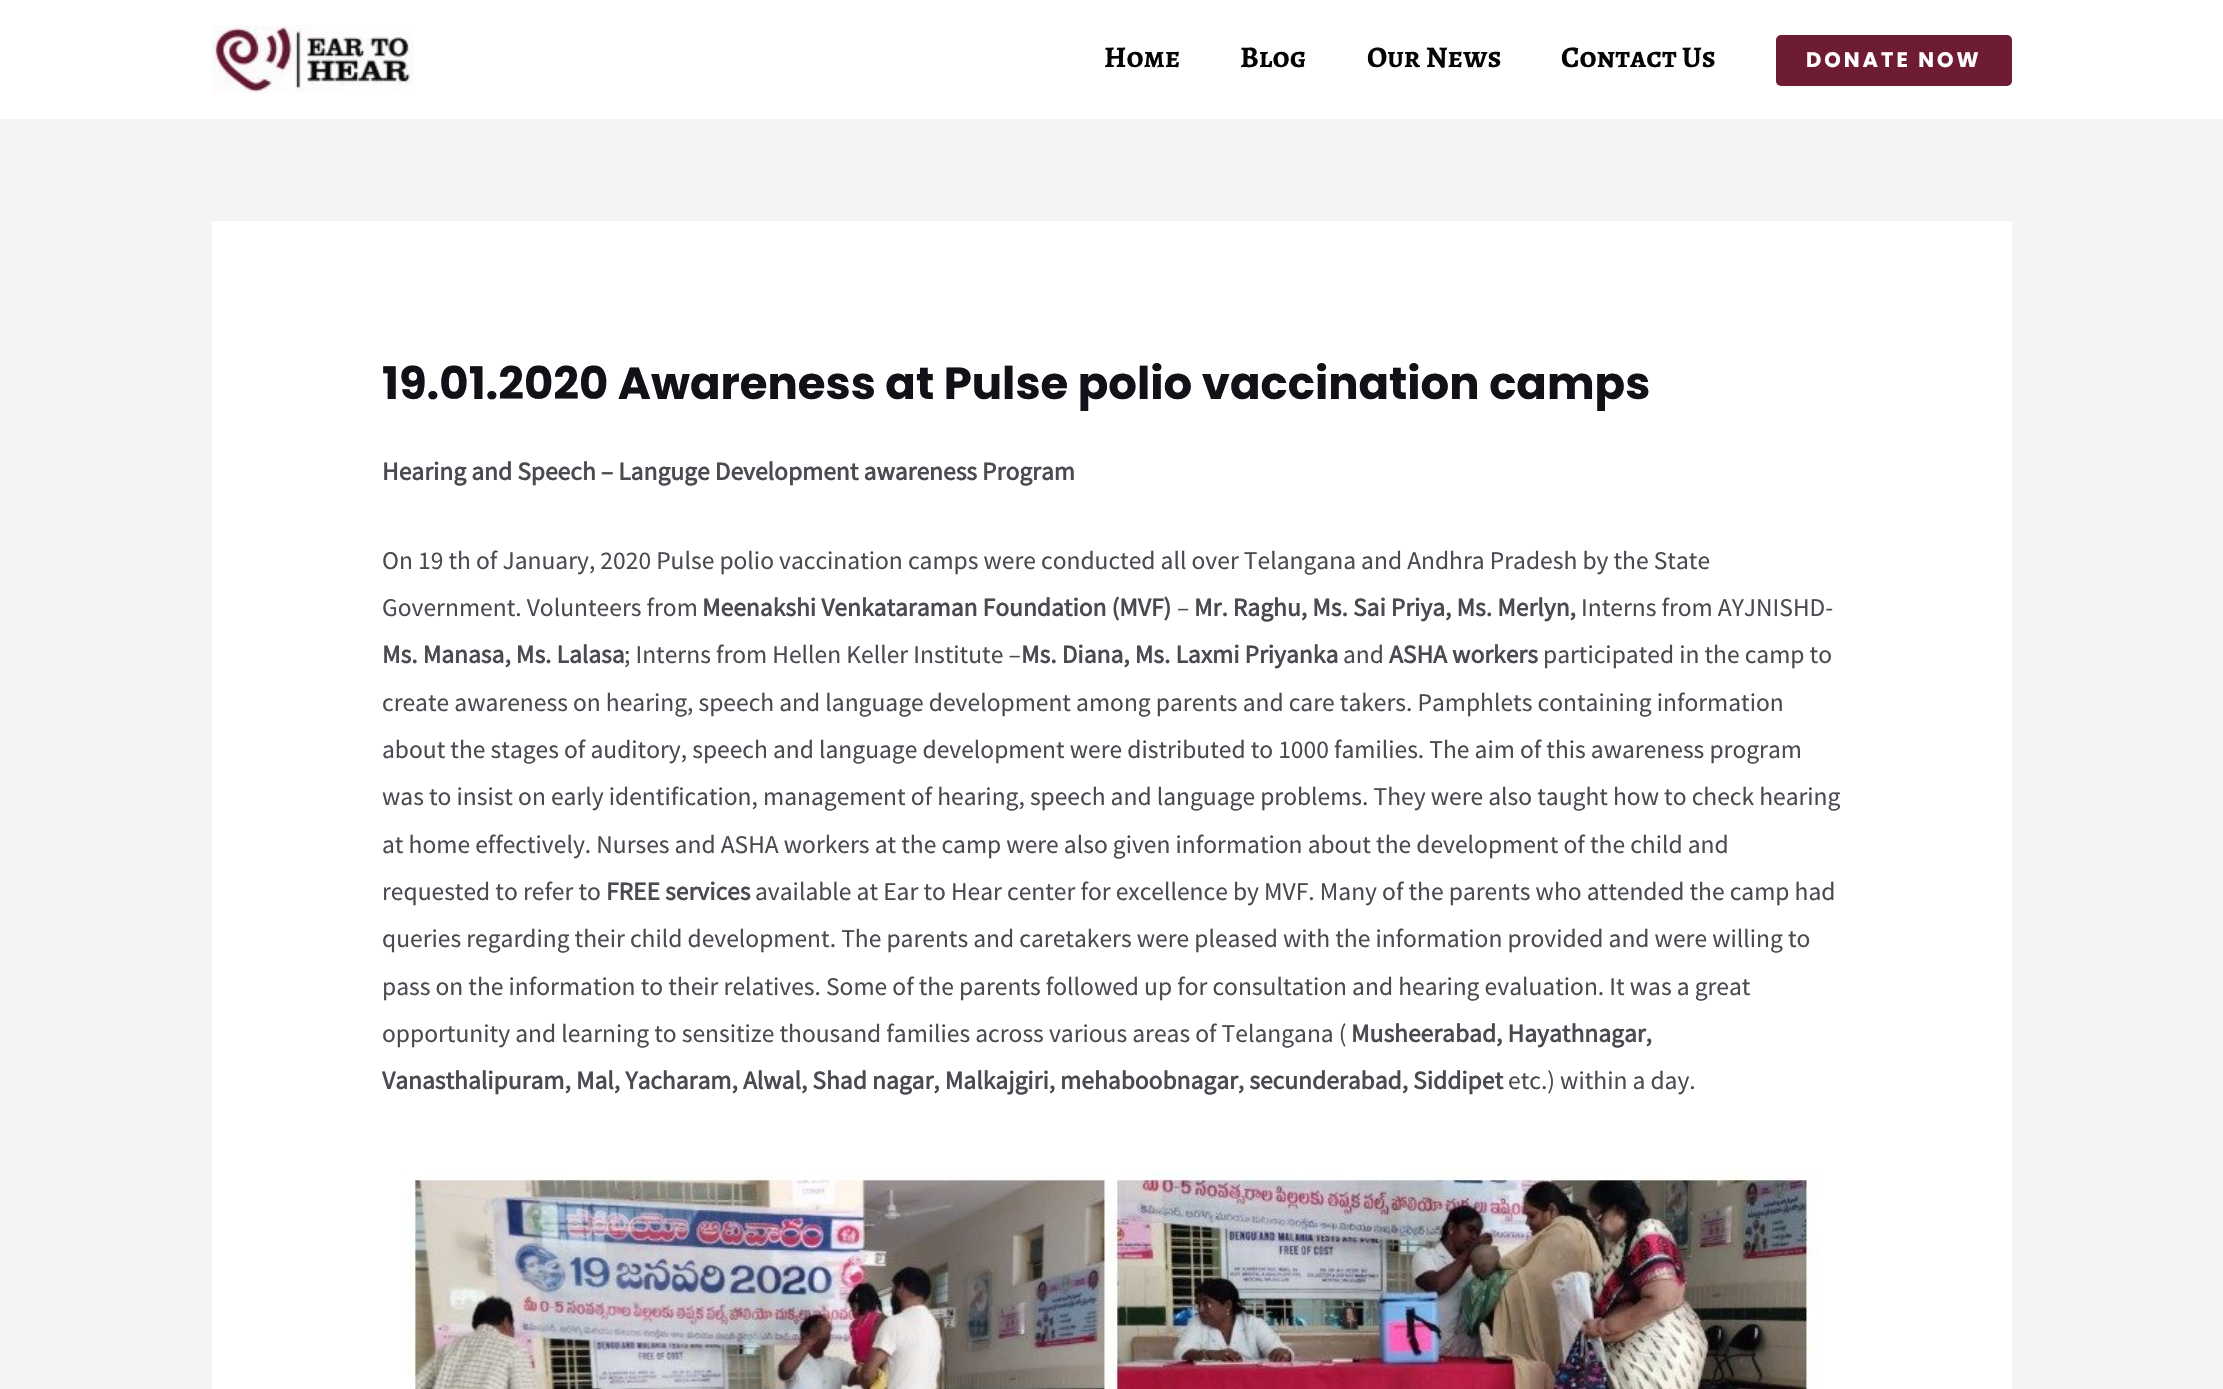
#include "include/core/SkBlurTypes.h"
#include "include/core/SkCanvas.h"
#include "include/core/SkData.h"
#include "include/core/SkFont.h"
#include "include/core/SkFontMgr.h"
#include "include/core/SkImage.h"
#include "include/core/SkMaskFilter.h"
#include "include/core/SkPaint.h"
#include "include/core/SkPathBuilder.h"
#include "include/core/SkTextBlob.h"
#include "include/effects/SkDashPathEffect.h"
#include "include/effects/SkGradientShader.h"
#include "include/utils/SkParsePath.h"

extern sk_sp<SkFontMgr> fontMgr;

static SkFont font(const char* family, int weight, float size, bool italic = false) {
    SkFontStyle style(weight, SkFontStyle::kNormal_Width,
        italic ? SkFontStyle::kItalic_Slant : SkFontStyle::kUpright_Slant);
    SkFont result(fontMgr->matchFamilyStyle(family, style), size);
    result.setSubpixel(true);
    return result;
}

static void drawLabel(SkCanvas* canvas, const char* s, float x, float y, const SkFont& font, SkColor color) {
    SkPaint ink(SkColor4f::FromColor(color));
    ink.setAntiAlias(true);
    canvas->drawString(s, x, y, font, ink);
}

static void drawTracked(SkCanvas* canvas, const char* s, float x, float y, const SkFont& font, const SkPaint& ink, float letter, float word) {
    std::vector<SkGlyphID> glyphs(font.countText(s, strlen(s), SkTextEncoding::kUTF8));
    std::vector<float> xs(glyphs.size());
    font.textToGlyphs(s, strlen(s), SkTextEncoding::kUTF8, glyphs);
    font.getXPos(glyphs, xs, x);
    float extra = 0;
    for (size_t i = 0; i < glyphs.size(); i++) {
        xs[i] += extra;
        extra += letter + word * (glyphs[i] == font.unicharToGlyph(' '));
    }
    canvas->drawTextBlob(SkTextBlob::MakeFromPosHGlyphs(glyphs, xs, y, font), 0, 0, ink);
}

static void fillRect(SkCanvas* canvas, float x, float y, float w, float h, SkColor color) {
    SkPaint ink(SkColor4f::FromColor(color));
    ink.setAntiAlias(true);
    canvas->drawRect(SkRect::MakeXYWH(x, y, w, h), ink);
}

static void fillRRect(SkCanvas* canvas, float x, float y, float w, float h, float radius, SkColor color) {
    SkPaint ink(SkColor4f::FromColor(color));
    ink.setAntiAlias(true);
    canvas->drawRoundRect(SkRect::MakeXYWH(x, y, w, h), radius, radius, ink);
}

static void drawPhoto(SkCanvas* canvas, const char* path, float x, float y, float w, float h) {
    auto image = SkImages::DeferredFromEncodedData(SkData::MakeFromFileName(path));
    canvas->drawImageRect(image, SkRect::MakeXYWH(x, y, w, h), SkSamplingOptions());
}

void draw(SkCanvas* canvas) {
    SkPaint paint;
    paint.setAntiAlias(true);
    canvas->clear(0xFFF3F5F5);
    fillRect(canvas, 0, 0, 2223, 119, 0xFFFFFFFF);
    drawPhoto(canvas, "assets/img1.png", 211, 25, 203, 68);
    SkFont font1 = font("Alegreya SC", 700, 30);
    drawLabel(canvas, "Home", 1104, 67, font1, 0xFF040404);
    drawLabel(canvas, "Blog", 1240, 67, font1, 0xFF040404);
    drawLabel(canvas, "Our News", 1367, 67, font1, 0xFF040404);
    drawLabel(canvas, "Contact Us", 1561, 67, font1, 0xFF040404);
    fillRRect(canvas, 1776, 35, 236, 51, 5, 0xFF6D1C34);
    SkFont font2 = font("Poppins", 700, 21);
    paint.setColor(0xFFFFFFFF);
    drawTracked(canvas, "DONATE NOW", 1806, 67, font2, paint, 3, 0);
    fillRect(canvas, 212, 221, 1800, 1168, 0xFFFFFFFF);
    SkFont font3 = font("Poppins", 700, 45);
    drawLabel(canvas, "19.01.2020 Awareness at Pulse polio vaccination camps", 382, 399, font3, 0xFF101218);
    SkFont font4 = font("Source Sans Pro", 700, 25.5f);
    drawLabel(canvas, "Hearing and Speech – Languge Development awareness Program", 382, 480, font4, 0xFF494B51);
    SkFont font5 = font("Source Sans Pro", 400, 25.5f);
    drawLabel(canvas, "On 19 th of January, 2020 Pulse polio vaccination camps were conducted all over Telangana and Andhra Pradesh by the State", 382, 569, font5, 0xFF494B51);
    drawLabel(canvas, "Government. Volunteers from", 382, 616, font5, 0xFF494B51);
    drawLabel(canvas, "Meenakshi Venkataraman Foundation (MVF)", 702, 616, font4, 0xFF494B51);
    drawLabel(canvas, "–", 1177, 616, font5, 0xFF494B51);
    drawLabel(canvas, "Mr. Raghu, Ms. Sai Priya, Ms. Merlyn,", 1194, 616, font4, 0xFF494B51);
    drawLabel(canvas, "Interns from AYJNISHD-", 1581, 616, font5, 0xFF494B51);
    drawLabel(canvas, "Ms. Manasa, Ms. Lalasa", 382, 663, font4, 0xFF494B51);
    drawLabel(canvas, "; Interns from Hellen Keller Institute –", 624, 663, font5, 0xFF494B51);
    drawLabel(canvas, "Ms. Diana, Ms. Laxmi Priyanka", 1021, 663, font4, 0xFF494B51);
    drawLabel(canvas, "and", 1343, 663, font5, 0xFF494B51);
    drawLabel(canvas, "ASHA workers", 1389, 663, font4, 0xFF494B51);
    drawLabel(canvas, "participated in the camp to", 1543, 663, font5, 0xFF494B51);
    drawLabel(canvas, "create awareness on hearing, speech and language development among parents and care takers. Pamphlets containing information", 382, 711, font5, 0xFF494B51);
    drawLabel(canvas, "about the stages of auditory, speech and language development were distributed to 1000 families. The aim of this awareness program", 382, 758, font5, 0xFF494B51);
    drawLabel(canvas, "was to insist on early identification, management of hearing, speech and language problems. They were also taught how to check hearing", 382, 805, font5, 0xFF494B51);
    drawLabel(canvas, "at home effectively. Nurses and ASHA workers at the camp were also given information about the development of the child and", 382, 853, font5, 0xFF494B51);
    drawLabel(canvas, "requested to refer to", 382, 900, font5, 0xFF494B51);
    drawLabel(canvas, "FREE services", 606, 900, font4, 0xFF494B51);
    drawLabel(canvas, "available at Ear to Hear center for excellence by MVF. Many of the parents who attended the camp had", 755, 900, font5, 0xFF494B51);
    drawLabel(canvas, "queries regarding their child development. The parents and caretakers were pleased with the information provided and were willing to", 382, 947, font5, 0xFF494B51);
    drawLabel(canvas, "pass on the information to their relatives. Some of the parents followed up for consultation and hearing evaluation. It was a great", 382, 995, font5, 0xFF494B51);
    drawLabel(canvas, "opportunity and learning to sensitize thousand families across various areas of Telangana (", 382, 1042, font5, 0xFF494B51);
    drawLabel(canvas, "Musheerabad, Hayathnagar,", 1351, 1042, font4, 0xFF494B51);
    drawLabel(canvas, "Vanasthalipuram, Mal, Yacharam, Alwal, Shad nagar, Malkajgiri, mehaboobnagar, secunderabad, Siddipet", 382, 1089, font4, 0xFF494B51);
    drawLabel(canvas, "etc.) within a day.", 1508, 1089, font5, 0xFF494B51);
    drawPhoto(canvas, "assets/img2.png", 404, 1169, 1415, 220);
}
